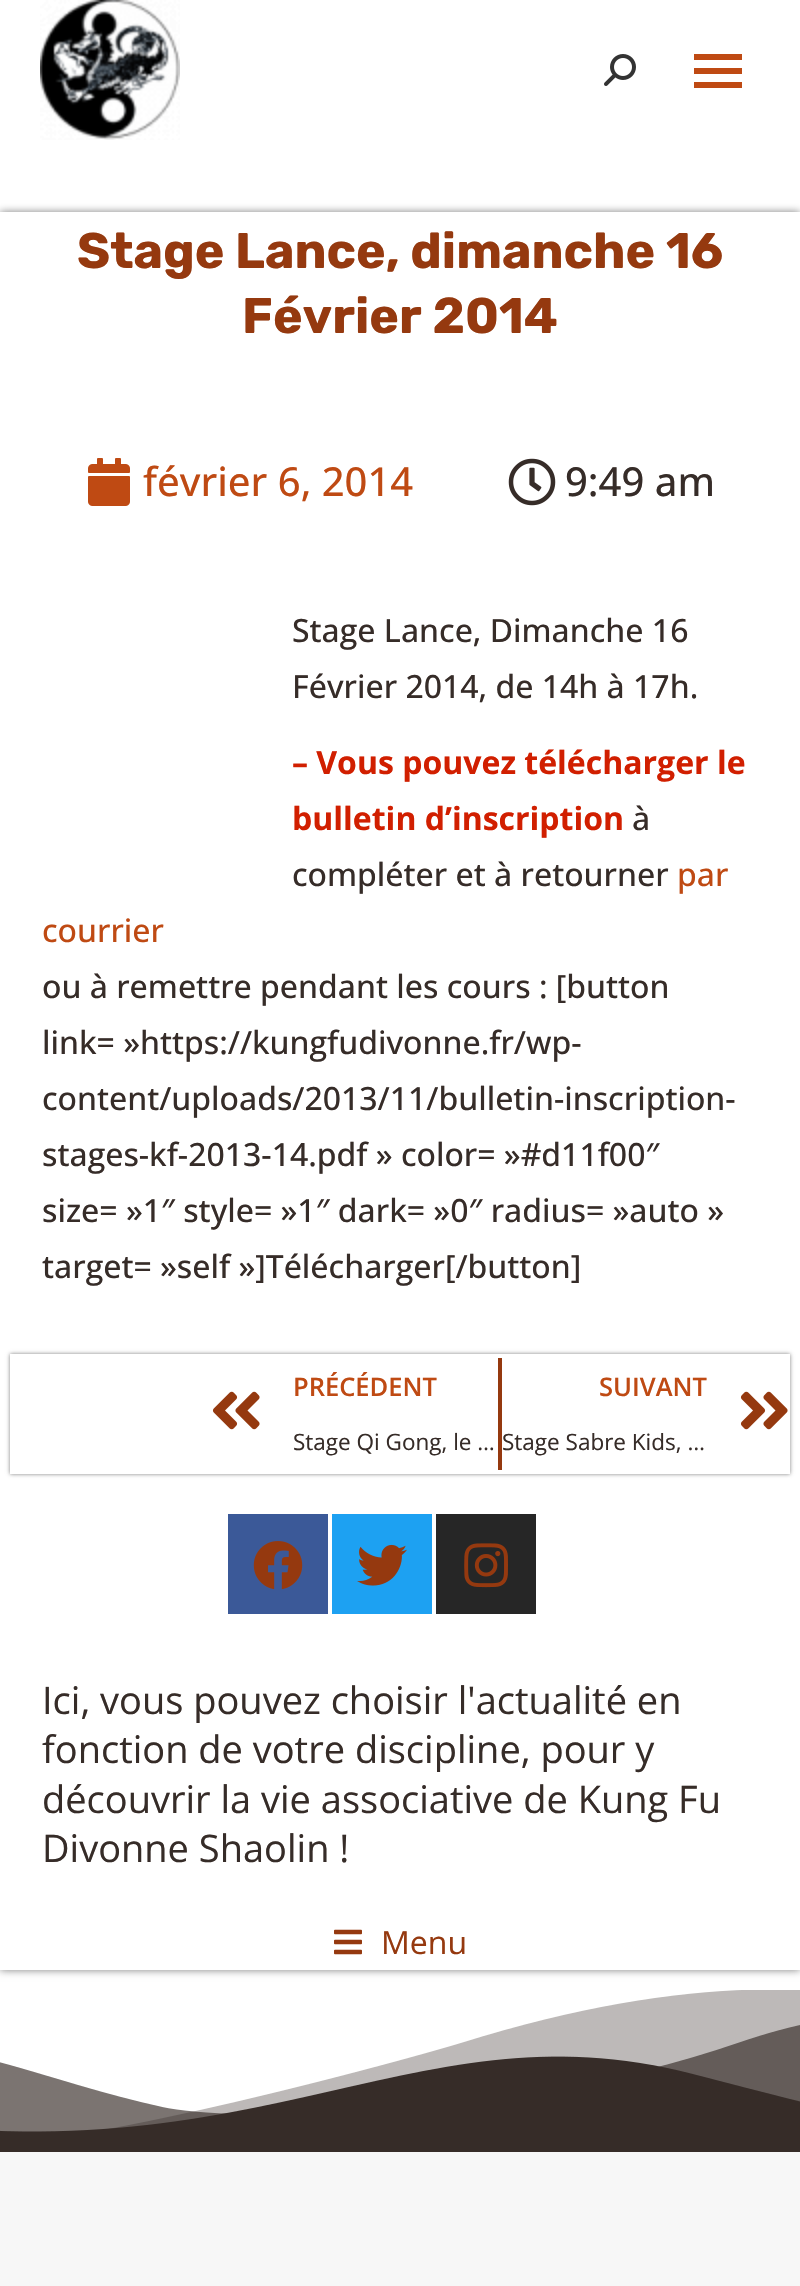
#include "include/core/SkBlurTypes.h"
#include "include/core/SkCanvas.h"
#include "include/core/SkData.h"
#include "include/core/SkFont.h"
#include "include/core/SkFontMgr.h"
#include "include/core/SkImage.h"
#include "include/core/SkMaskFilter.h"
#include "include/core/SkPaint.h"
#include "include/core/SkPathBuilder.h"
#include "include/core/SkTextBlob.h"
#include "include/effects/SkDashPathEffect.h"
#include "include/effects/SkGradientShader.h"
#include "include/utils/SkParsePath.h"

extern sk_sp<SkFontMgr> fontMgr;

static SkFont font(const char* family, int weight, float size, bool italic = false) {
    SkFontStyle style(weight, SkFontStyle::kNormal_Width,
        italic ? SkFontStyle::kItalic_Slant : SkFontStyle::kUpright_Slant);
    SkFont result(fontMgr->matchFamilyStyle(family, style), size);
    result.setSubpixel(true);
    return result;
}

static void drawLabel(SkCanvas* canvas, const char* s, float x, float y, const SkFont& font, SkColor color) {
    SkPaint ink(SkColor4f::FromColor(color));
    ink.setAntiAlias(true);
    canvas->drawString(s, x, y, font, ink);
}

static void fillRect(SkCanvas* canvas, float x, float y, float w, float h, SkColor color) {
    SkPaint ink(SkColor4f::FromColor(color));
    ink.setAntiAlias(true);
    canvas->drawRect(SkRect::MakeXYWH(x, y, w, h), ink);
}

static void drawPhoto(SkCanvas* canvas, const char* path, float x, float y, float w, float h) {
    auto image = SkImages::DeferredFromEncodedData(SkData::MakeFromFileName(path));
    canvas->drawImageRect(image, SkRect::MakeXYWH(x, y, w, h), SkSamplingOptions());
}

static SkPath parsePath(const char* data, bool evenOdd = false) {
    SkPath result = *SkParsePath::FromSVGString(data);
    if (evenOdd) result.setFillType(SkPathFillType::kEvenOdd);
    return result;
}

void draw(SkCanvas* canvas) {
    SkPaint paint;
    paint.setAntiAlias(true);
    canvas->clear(0xFFF7F7F7);
    fillRect(canvas, 0, 0, 800, 2132, 0xFFFFFFFF);
    drawPhoto(canvas, "assets/img1.png", 40, 0, 140, 140);
    drawPhoto(canvas, "assets/img2.png", 604, 54, 32, 32);
    fillRect(canvas, 694, 54, 48, 6, 0xFFBF4A13);
    fillRect(canvas, 694, 68, 48, 6, 0xFFBF4A13);
    fillRect(canvas, 694, 82, 48, 6, 0xFFBF4A13);
    canvas->save();
    canvas->clipPath(parsePath("M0 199H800V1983H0ZM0 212H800V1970H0Z", true), true);
    paint.setColor(0x80000000);
    paint.setMaskFilter(SkMaskFilter::MakeBlur(kNormal_SkBlurStyle, 4));
    canvas->drawRect(SkRect::MakeXYWH(0, 212, 800, 1758), paint);
    paint.setMaskFilter(nullptr);
    canvas->restore();
    SkFont font1 = font("Rubik", 700, 50);
    drawLabel(canvas, "Stage Lance, dimanche 16", 77, 268, font1, 0xFF95390F);
    drawLabel(canvas, "Février 2014", 242, 333, font1, 0xFF95390F);
    drawPhoto(canvas, "assets/img3.png", 88, 458, 42, 48);
    SkFont font2 = font("Open Sans", 500, 40);
    drawLabel(canvas, "février 6, 2014", 143, 496, font2, 0xFFBF4A13);
    drawPhoto(canvas, "assets/img4.png", 508, 458, 48, 48);
    drawLabel(canvas, "9:49 am", 565, 496, font2, 0xFF362C28);
    SkFont font3 = font("Open Sans", 500, 32);
    drawLabel(canvas, "Stage Lance, Dimanche 16", 292, 642, font3, 0xFF362C28);
    drawLabel(canvas, "Février 2014, de 14h à 17h.", 292, 698, font3, 0xFF362C28);
    SkFont font4 = font("Open Sans", 700, 32);
    drawLabel(canvas, "– Vous pouvez télécharger le", 292, 774, font4, 0xFFD11F00);
    drawLabel(canvas, "bulletin d’inscription", 292, 830, font4, 0xFFD11F00);
    drawLabel(canvas, "à", 632, 830, font3, 0xFF362C28);
    drawLabel(canvas, "compléter et à retourner", 292, 886, font3, 0xFF362C28);
    drawLabel(canvas, "par", 677, 886, font3, 0xFFBF4A13);
    drawLabel(canvas, "courrier", 42, 942, font3, 0xFFBF4A13);
    drawLabel(canvas, "ou à remettre pendant les cours : [button", 42, 998, font3, 0xFF362C28);
    drawLabel(canvas, "link= »https://kungfudivonne.fr/wp-", 42, 1054, font3, 0xFF362C28);
    drawLabel(canvas, "content/uploads/2013/11/bulletin-inscription-", 42, 1110, font3, 0xFF362C28);
    drawLabel(canvas, "stages-kf-2013-14.pdf » color= »#d11f00″", 42, 1166, font3, 0xFF362C28);
    drawLabel(canvas, "size= »1″ style= »1″ dark= »0″ radius= »auto »", 42, 1222, font3, 0xFF362C28);
    drawLabel(canvas, "target= »self »]Télécharger[/button]", 42, 1278, font3, 0xFF362C28);
    canvas->save();
    canvas->clipPath(parsePath("M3 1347H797V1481H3ZM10 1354H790V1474H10Z", true), true);
    paint.setMaskFilter(SkMaskFilter::MakeBlur(kNormal_SkBlurStyle, 2));
    canvas->drawRect(SkRect::MakeXYWH(10, 1354, 780, 120), paint);
    paint.setMaskFilter(nullptr);
    canvas->restore();
    drawPhoto(canvas, "assets/img5.png", 212, 1391, 48, 39);
    SkFont font5 = font("Open Sans", 600, 25.5f);
    drawLabel(canvas, "PRÉCÉDENT", 293, 1396, font5, 0xFFBF4A13);
    SkFont font6 = font("Open Sans", 400, 22.5f);
    drawLabel(canvas, "Stage Qi Gong, le …", 293, 1450, font6, 0xFF362C28);
    fillRect(canvas, 498, 1358, 4, 112, 0xFF95390F);
    drawLabel(canvas, "SUIVANT", 599, 1396, font5, 0xFFBF4A13);
    drawLabel(canvas, "Stage Sabre Kids, …", 502, 1450, font6, 0xFF362C28);
    drawPhoto(canvas, "assets/img6.png", 740, 1391, 48, 39);
    fillRect(canvas, 228, 1514, 100, 100, 0xFF3B5998);
    drawPhoto(canvas, "assets/img7.png", 253, 1541, 50, 49);
    fillRect(canvas, 332, 1514, 100, 100, 0xFF1DA1F2);
    drawPhoto(canvas, "assets/img8.png", 357, 1544, 50, 42);
    fillRect(canvas, 436, 1514, 100, 100, 0xFF262626);
    drawPhoto(canvas, "assets/img9.png", 464, 1543, 44, 45);
    SkFont font7 = font("Open Sans", 400, 38);
    drawLabel(canvas, "Ici, vous pouvez choisir l'actualité en", 42, 1714, font7, 0xFF362C28);
    drawLabel(canvas, "fonction de votre discipline, pour y", 42, 1763, font7, 0xFF362C28);
    drawLabel(canvas, "découvrir la vie associative de Kung Fu", 42, 1813, font7, 0xFF362C28);
    drawLabel(canvas, "Divonne Shaolin !", 42, 1862, font7, 0xFF362C28);
    drawPhoto(canvas, "assets/img10.png", 334, 1929, 28, 26);
    SkFont font8 = font("Open Sans", 400, 32);
    drawLabel(canvas, "Menu", 381, 1954, font8, 0xFF95390F);
    drawPhoto(canvas, "assets/img11.png", 0, 1990, 800, 162);
}
